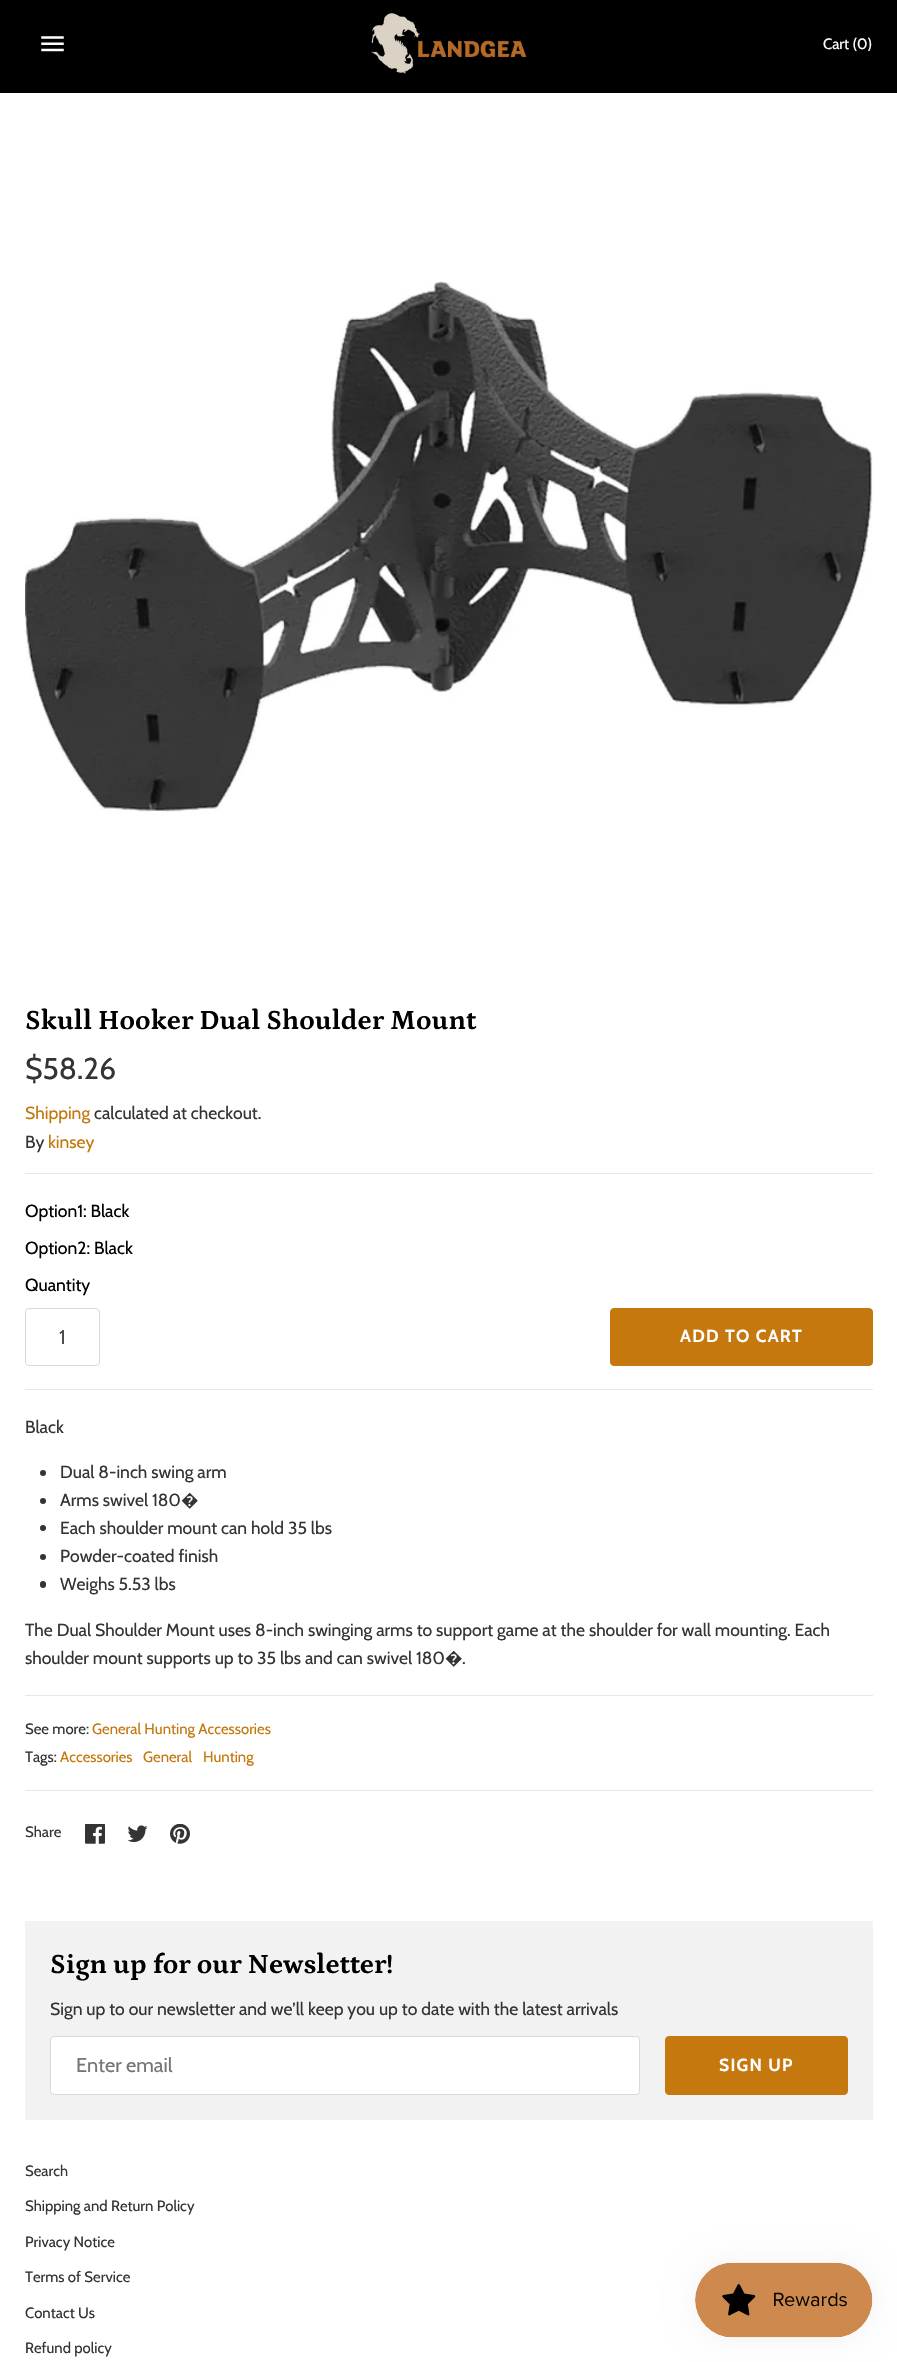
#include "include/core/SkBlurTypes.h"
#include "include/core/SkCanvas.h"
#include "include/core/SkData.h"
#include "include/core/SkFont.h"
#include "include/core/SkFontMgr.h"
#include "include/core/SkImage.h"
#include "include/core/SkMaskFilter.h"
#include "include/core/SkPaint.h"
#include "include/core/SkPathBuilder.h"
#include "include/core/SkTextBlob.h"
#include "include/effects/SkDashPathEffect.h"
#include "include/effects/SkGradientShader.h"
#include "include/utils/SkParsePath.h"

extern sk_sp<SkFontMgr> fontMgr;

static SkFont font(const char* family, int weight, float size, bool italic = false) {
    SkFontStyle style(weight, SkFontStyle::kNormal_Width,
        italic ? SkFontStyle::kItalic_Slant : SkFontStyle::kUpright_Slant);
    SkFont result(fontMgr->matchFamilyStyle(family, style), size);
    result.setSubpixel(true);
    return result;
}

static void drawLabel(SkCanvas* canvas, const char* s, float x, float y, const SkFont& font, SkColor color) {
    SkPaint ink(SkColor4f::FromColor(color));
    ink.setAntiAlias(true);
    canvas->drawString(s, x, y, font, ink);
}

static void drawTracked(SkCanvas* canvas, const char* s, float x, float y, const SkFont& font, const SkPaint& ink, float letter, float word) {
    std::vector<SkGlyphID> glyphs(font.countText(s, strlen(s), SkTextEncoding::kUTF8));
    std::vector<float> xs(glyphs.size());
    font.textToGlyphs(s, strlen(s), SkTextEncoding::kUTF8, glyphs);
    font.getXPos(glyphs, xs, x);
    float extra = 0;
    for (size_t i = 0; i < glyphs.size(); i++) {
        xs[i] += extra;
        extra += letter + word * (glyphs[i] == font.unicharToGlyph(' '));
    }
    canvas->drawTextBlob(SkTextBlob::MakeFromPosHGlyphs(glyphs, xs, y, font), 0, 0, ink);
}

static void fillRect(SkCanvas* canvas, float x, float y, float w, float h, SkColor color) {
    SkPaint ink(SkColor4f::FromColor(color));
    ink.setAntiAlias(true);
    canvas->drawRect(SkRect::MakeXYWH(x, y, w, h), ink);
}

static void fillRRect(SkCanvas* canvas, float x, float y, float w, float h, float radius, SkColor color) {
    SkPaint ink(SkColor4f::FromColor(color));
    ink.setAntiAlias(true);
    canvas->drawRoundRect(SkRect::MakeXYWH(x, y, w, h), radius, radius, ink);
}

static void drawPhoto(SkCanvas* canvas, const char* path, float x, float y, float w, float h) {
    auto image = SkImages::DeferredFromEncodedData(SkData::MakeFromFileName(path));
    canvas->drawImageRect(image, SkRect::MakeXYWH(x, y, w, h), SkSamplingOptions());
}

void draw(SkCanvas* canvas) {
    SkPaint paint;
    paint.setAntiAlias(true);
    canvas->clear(0xFFFFFFFF);
    fillRect(canvas, 0, 0, 897, 93, 0xFF000000);
    drawPhoto(canvas, "assets/img1.png", 41, 36, 23, 16);
    drawPhoto(canvas, "assets/img2.png", 371, 13, 156, 61);
    SkFont font1 = font("Cabin", 400, 14.9f);
    drawLabel(canvas, "Cart (0)", 823, 49, font1, 0xFFFFFFFF);
    drawPhoto(canvas, "assets/img3.png", 25, 281, 848, 534);
    SkFont font2 = font("Petrona", 700, 28);
    drawLabel(canvas, "Skull Hooker Dual Shoulder Mount", 25, 1029, font2, 0xFF000000);
    SkFont font3 = font("Cabin", 400, 30);
    drawLabel(canvas, "$58.26", 25, 1079, font3, 0xFF343434);
    SkFont font4 = font("Cabin", 400, 17.5f);
    drawLabel(canvas, "Shipping", 25, 1119, font4, 0xFFC4780D);
    drawLabel(canvas, "calculated at checkout.", 94, 1119, font4, 0xFF343434);
    drawLabel(canvas, "By", 25, 1148, font4, 0xFF343434);
    drawLabel(canvas, "kinsey", 48, 1148, font4, 0xFFC4780D);
    fillRect(canvas, 25, 1173, 848, 1, 0xFFE7E7E7);
    drawLabel(canvas, "Option1: Black", 25, 1217, font4, 0xFF000000);
    drawLabel(canvas, "Option2: Black", 25, 1254, font4, 0xFF000000);
    drawLabel(canvas, "Quantity", 25, 1291, font4, 0xFF000000);
    paint.setStroke(true);
    paint.setStrokeWidth(1);
    paint.setColor(0xFFD9D9D9);
    canvas->drawRoundRect(SkRect::MakeXYWH(25.5f, 1308.5f, 74, 57), 3.5f, 3.5f, paint);
    SkFont font5 = font("Cabin", 400, 20);
    drawLabel(canvas, "1", 59, 1344, font5, 0xFF444444);
    paint.setStroke(false);
    paint.setColor(0xFFC4780D);
    canvas->drawRoundRect(SkRect::MakeXYWH(610.5f, 1308.5f, 262, 57), 3.5f, 3.5f, paint);
    paint.setStroke(true);
    canvas->drawRoundRect(SkRect::MakeXYWH(610.5f, 1308.5f, 262, 57), 3.5f, 3.5f, paint);
    SkFont font6 = font("Cabin", 700, 17.5f);
    paint.setStroke(false);
    paint.setColor(0xFFFFFFFF);
    drawTracked(canvas, "ADD TO CART", 680, 1342, font6, paint, 1.25f, 0);
    fillRect(canvas, 25, 1389, 848, 1, 0xFFE7E7E7);
    drawLabel(canvas, "Black", 25, 1433, font4, 0xFF343434);
    paint.setColor(0xFF343434);
    canvas->drawCircle(43, 1473, 3, paint);
    drawLabel(canvas, "Dual 8-inch swing arm", 60, 1478, font4, 0xFF343434);
    canvas->drawCircle(43, 1501, 3, paint);
    drawLabel(canvas, "Arms swivel 180", 60, 1506, font4, 0xFF343434);
    SkFont font7 = font("Noto Sans", 400, 17.5f);
    drawLabel(canvas, "�", 181, 1506, font7, 0xFF343434);
    canvas->drawCircle(43, 1528, 3, paint);
    drawLabel(canvas, "Each shoulder mount can hold 35 lbs", 60, 1534, font4, 0xFF343434);
    canvas->drawCircle(43, 1557, 3, paint);
    drawLabel(canvas, "Powder-coated finish", 60, 1562, font4, 0xFF343434);
    fillRRect(canvas, 40, 1581, 6, 7, 3, 0xFF343434);
    drawLabel(canvas, "Weighs 5.53 lbs", 60, 1590, font4, 0xFF343434);
    drawLabel(canvas, "The Dual Shoulder Mount uses 8-inch swinging arms to support game at the shoulder for wall mounting. Each", 25, 1636, font4, 0xFF343434);
    drawLabel(canvas, "shoulder mount supports up to 35 lbs and can swivel 180", 25, 1664, font4, 0xFF343434);
    drawLabel(canvas, "�", 445, 1664, font7, 0xFF343434);
    drawLabel(canvas, ".", 462, 1664, font4, 0xFF343434);
    fillRect(canvas, 25, 1695, 848, 1, 0xFFE7E7E7);
    drawLabel(canvas, "See more:", 25, 1734, font1, 0xFF343434);
    drawLabel(canvas, "General Hunting Accessories", 92, 1734, font1, 0xFFC4780D);
    drawLabel(canvas, "Tags:", 25, 1762, font1, 0xFF343434);
    drawLabel(canvas, "Accessories", 60, 1762, font1, 0xFFC4780D);
    drawLabel(canvas, "General", 143, 1762, font1, 0xFFC4780D);
    drawLabel(canvas, "Hunting", 203, 1762, font1, 0xFFC4780D);
    fillRect(canvas, 25, 1790, 848, 1, 0xFFE7E7E7);
    drawLabel(canvas, "Share", 25, 1837, font1, 0xFF343434);
    drawPhoto(canvas, "assets/img4.png", 85, 1824, 20, 20);
    drawPhoto(canvas, "assets/img5.png", 128, 1825, 20, 18);
    drawPhoto(canvas, "assets/img6.png", 170, 1824, 20, 20);
    fillRect(canvas, 25, 1921, 848, 199, 0xFFF2F2F2);
    drawLabel(canvas, "Sign up for our Newsletter!", 50, 1973, font2, 0xFF000000);
    drawLabel(canvas, "Sign up to our newsletter and we’ll keep you up to date with the latest arrivals", 50, 2015, font4, 0xFF343434);
    fillRRect(canvas, 50, 2036, 590, 59, 4, 0xFFFFFFFF);
    paint.setStroke(true);
    paint.setColor(0x26000000);
    canvas->drawRoundRect(SkRect::MakeXYWH(50.5f, 2036.5f, 589, 58), 3.5f, 3.5f, paint);
    drawLabel(canvas, "Enter email", 76, 2072, font5, 0xFF757575);
    paint.setStroke(false);
    paint.setColor(0xFFC4780D);
    canvas->drawRoundRect(SkRect::MakeXYWH(665.5f, 2036.5f, 182, 58), 3.5f, 3.5f, paint);
    paint.setStroke(true);
    canvas->drawRoundRect(SkRect::MakeXYWH(665.5f, 2036.5f, 182, 58), 3.5f, 3.5f, paint);
    paint.setStroke(false);
    paint.setColor(0xFFFFFFFF);
    drawTracked(canvas, "SIGN UP", 719, 2071, font6, paint, 1.25f, 0);
    drawLabel(canvas, "Search", 25, 2176, font1, 0xFF343434);
    drawLabel(canvas, "Shipping and Return Policy", 25, 2211, font1, 0xFF343434);
    drawLabel(canvas, "Privacy Notice", 25, 2247, font1, 0xFF343434);
    drawLabel(canvas, "Terms of Service", 25, 2282, font1, 0xFF343434);
    drawLabel(canvas, "Contact Us", 25, 2318, font1, 0xFF343434);
    drawLabel(canvas, "Refund policy", 25, 2353, font1, 0xFF343434);
    paint.setColor(0x0D000000);
    paint.setMaskFilter(SkMaskFilter::MakeBlur(kNormal_SkBlurStyle, 15.5f));
    canvas->drawRoundRect(SkRect::MakeXYWH(695, 2263, 178, 75), 37.5f, 37.5f, paint);
    paint.setMaskFilter(nullptr);
    drawPhoto(canvas, "assets/img7.png", 695, 2262, 178, 76);
}
